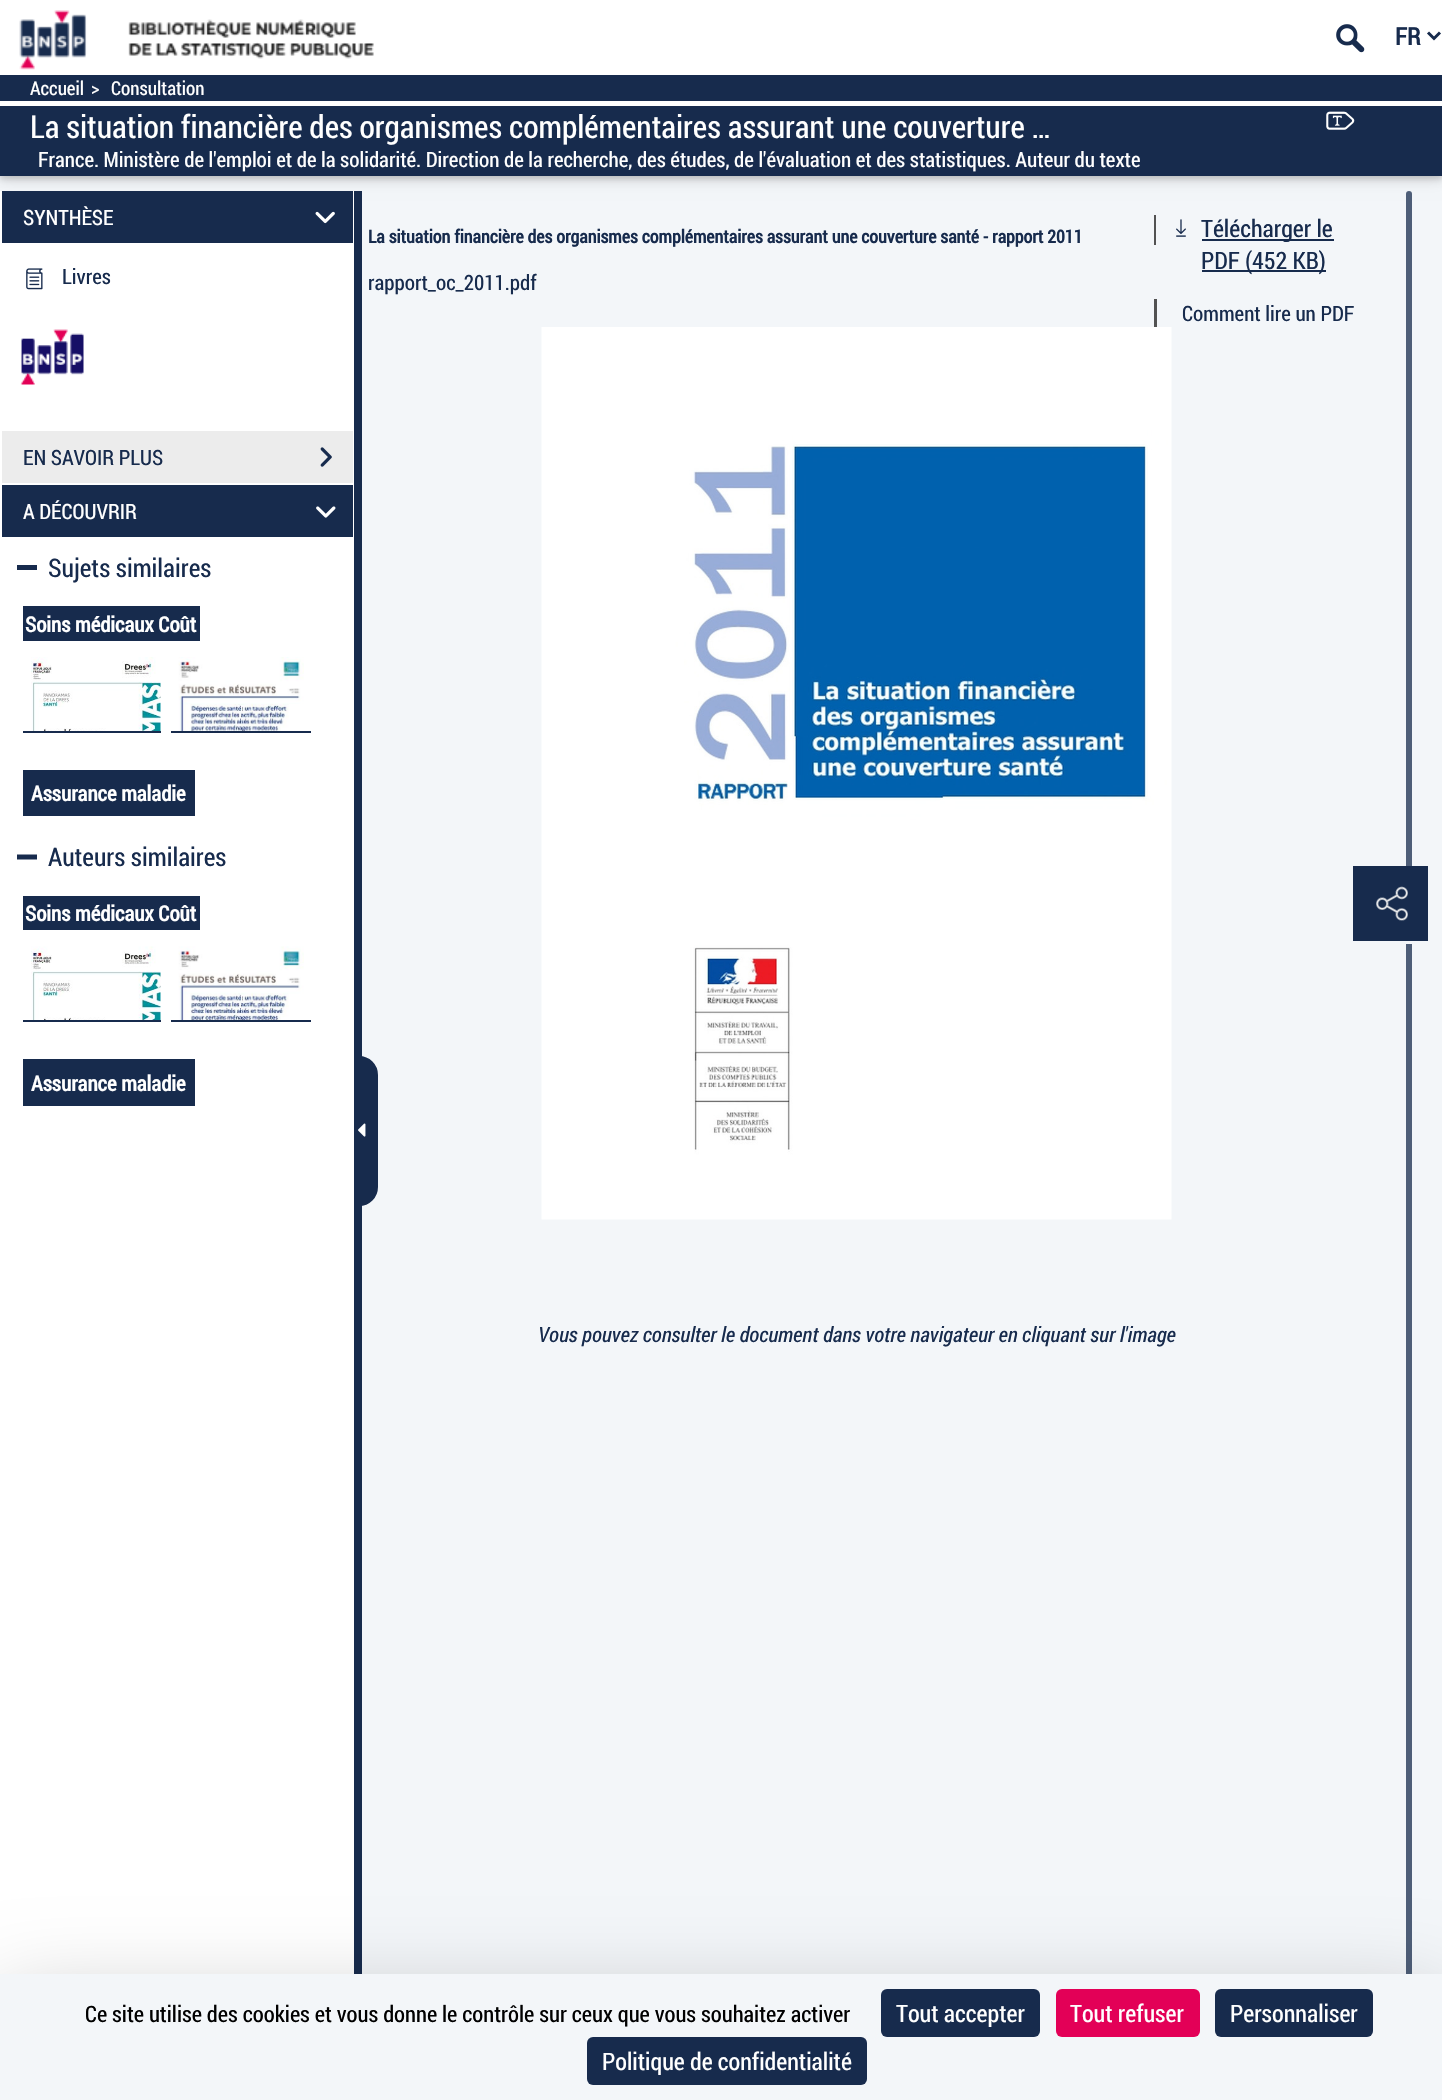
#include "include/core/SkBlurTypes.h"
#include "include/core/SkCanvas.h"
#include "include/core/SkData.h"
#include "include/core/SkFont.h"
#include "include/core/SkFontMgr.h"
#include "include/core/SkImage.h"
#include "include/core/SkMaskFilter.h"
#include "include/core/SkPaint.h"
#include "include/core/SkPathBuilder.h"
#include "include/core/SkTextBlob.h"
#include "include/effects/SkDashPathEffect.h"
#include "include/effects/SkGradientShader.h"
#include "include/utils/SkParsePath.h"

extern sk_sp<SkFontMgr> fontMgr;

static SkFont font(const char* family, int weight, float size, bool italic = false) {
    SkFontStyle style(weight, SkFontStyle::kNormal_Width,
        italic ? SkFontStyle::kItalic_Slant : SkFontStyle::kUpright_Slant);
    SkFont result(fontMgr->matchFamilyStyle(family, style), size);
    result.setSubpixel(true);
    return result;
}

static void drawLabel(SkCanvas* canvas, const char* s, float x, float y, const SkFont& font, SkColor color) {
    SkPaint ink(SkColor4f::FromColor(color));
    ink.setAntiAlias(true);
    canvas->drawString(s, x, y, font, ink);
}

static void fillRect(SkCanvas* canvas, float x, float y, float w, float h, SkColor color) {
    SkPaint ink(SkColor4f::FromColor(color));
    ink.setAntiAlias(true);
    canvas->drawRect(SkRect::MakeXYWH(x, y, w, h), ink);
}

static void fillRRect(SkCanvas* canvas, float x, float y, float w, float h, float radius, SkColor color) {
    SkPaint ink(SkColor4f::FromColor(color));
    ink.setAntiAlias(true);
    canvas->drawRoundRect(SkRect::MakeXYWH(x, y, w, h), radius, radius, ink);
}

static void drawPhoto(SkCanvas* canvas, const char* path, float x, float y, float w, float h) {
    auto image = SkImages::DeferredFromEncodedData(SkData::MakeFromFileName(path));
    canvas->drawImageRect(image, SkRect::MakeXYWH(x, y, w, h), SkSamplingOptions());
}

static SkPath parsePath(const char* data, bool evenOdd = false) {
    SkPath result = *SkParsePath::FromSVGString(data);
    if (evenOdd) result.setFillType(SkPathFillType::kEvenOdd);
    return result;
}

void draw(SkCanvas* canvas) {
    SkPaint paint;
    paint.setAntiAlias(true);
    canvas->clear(0xFFF3F6F9);
    fillRRect(canvas, 1406, 191, 6, 1879, 3, 0xFF4E5E78);
    paint.setColor(0x1F000000);
    paint.setMaskFilter(SkMaskFilter::MakeBlur(kNormal_SkBlurStyle, 7.5f));
    canvas->drawRect(SkRect::MakeXYWH(0, 78, 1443, 101), paint);
    paint.setMaskFilter(nullptr);
    paint.setColor(0x29000000);
    paint.setMaskFilter(SkMaskFilter::MakeBlur(kNormal_SkBlurStyle, 3));
    canvas->drawRect(SkRect::MakeXYWH(0, 78, 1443, 101), paint);
    paint.setMaskFilter(nullptr);
    fillRect(canvas, 0, 0, 1442, 75, 0xFFFFFFFF);
    drawPhoto(canvas, "assets/img1.png", 19, 10, 355, 60);
    drawPhoto(canvas, "assets/img2.png", 1336, 24, 29, 29);
    paint.setStroke(true);
    paint.setStrokeWidth(3);
    paint.setColor(0xFF172B4D);
    canvas->drawPath(parsePath("M1428 32.5L1434 38.5L1440 32.5"), paint);
    SkFont font1 = font("Roboto Condensed", 700, 24);
    drawLabel(canvas, "FR", 1395, 45, font1, 0xFF172B4D);
    fillRect(canvas, 0, 75, 1442, 101, 0xFF172B4D);
    fillRect(canvas, 0, 101, 1442, 5, 0xFFFFFFFF);
    SkFont font2 = font("Roboto Condensed", 400, 19);
    drawLabel(canvas, "Accueil", 30, 95, font2, 0xFFFFFFFF);
    drawLabel(canvas, ">", 91, 95, font2, 0xFFFFFFFF);
    drawLabel(canvas, "Consultation", 111, 95, font2, 0xFFFFFFFF);
    SkFont font3 = font("Roboto Condensed", 400, 31.5f);
    drawLabel(canvas, "La situation financière des organismes complémentaires assurant une couverture …", 30, 138, font3, 0xFFFFFFFF);
    SkFont font4 = font("Roboto Condensed", 400, 21);
    drawLabel(canvas, "France. Ministère de l'emploi et de la solidarité. Direction de la recherche, des études, de l'évaluation et des statistiques. Auteur du texte", 38, 167, font4, 0xFFFFFFFF);
    drawPhoto(canvas, "assets/img3.png", 1326, 111, 29, 19);
    fillRect(canvas, 354, 191, 8, 1783, 0xFF172B4D);
    fillRect(canvas, 0, 191, 354, 1783, 0xFFFFFFFF);
    fillRect(canvas, 2, 191, 351, 52, 0xFF172B4D);
    drawLabel(canvas, "SYNTHÈSE", 23, 225, font4, 0xFFFFFFFF);
    drawPhoto(canvas, "assets/img4.png", 315, 211, 20, 13);
    drawPhoto(canvas, "assets/img5.png", 26, 268, 17, 22);
    drawLabel(canvas, "Livres", 62, 284, font4, 0xFF172B4D);
    drawPhoto(canvas, "assets/img6.png", 20, 329, 64, 56);
    fillRect(canvas, 2, 431, 351, 52, 0xFFECECEC);
    drawLabel(canvas, "EN SAVOIR PLUS", 23, 465, font4, 0xFF172B4D);
    drawPhoto(canvas, "assets/img7.png", 320, 447, 12, 20);
    fillRect(canvas, 2, 485, 351, 52, 0xFF172B4D);
    drawLabel(canvas, "A DÉCOUVRIR", 23, 519, font4, 0xFFFFFFFF);
    drawPhoto(canvas, "assets/img8.png", 316, 506, 20, 12);
    SkFont font5 = font("Roboto Condensed", 400, 25.5f);
    drawLabel(canvas, "Sujets similaires", 48, 577, font5, 0xFF172B4D);
    paint.setStroke(false);
    canvas->drawPath(parsePath("M24.5 570H17V565H37V570Z"), paint);
    fillRect(canvas, 23, 606, 177, 35, 0xFF172B4D);
    SkFont font6 = font("Roboto Condensed", 700, 21);
    drawLabel(canvas, "Soins médicaux Coût", 25, 632, font6, 0xFFFFFFFF);
    drawPhoto(canvas, "assets/img9.png", 31, 657, 130, 74);
    fillRect(canvas, 23, 731, 138, 2, 0xFF172B4D);
    drawPhoto(canvas, "assets/img10.png", 178, 657, 126, 74);
    fillRect(canvas, 171, 731, 140, 2, 0xFF172B4D);
    fillRect(canvas, 23, 770, 172, 46, 0xFF172B4D);
    drawLabel(canvas, "Assurance maladie", 31, 801, font6, 0xFFFFFFFF);
    drawLabel(canvas, "Auteurs similaires", 48, 866, font5, 0xFF172B4D);
    canvas->drawPath(parsePath("M24.5 859.5H17V854.5H37V859.5Z"), paint);
    fillRect(canvas, 23, 896, 177, 34, 0xFF172B4D);
    drawLabel(canvas, "Soins médicaux Coût", 25, 921, font6, 0xFFFFFFFF);
    drawPhoto(canvas, "assets/img11.png", 31, 946, 130, 74);
    fillRect(canvas, 23, 1020, 138, 2, 0xFF172B4D);
    drawPhoto(canvas, "assets/img12.png", 178, 946, 126, 74);
    fillRect(canvas, 171, 1020, 140, 2, 0xFF172B4D);
    fillRect(canvas, 23, 1059, 172, 47, 0xFF172B4D);
    drawLabel(canvas, "Assurance maladie", 31, 1091, font6, 0xFFFFFFFF);
    canvas->drawPath(parsePath("M360 1057H359C369 1057 377 1065 377 1075V1187C377 1197 369 1205 359 1205H360Z"), paint);
    paint.setStroke(true);
    paint.setStrokeWidth(2);
    canvas->drawPath(parsePath("M360 1057H359C369 1057 377 1065 377 1075V1187C377 1197 369 1205 359 1205H360Z"), paint);
    drawPhoto(canvas, "assets/img13.png", 358, 1123, 8, 14);
    SkFont font7 = font("Roboto Condensed", 700, 18);
    drawLabel(canvas, "La situation financière des organismes complémentaires assurant une couverture santé - rapport 2011", 368, 243, font7, 0xFF172B4D);
    drawLabel(canvas, "rapport_oc_2011.pdf", 368, 290, font4, 0xFF172B4D);
    fillRect(canvas, 1154, 215, 2, 30, 0xFF525252);
    drawPhoto(canvas, "assets/img14.png", 1176, 219, 10, 18);
    fillRect(canvas, 1202, 239, 132, 2, 0xFF172B4D);
    SkFont font8 = font("Roboto Condensed", 400, 24);
    drawLabel(canvas, "Télécharger le", 1201, 237, font8, 0xFF172B4D);
    fillRect(canvas, 1202, 270, 124, 2, 0xFF172B4D);
    drawLabel(canvas, "PDF (452 KB)", 1201, 269, font8, 0xFF172B4D);
    fillRect(canvas, 1154, 299, 3, 30, 0xFF525252);
    drawLabel(canvas, "Comment lire un PDF", 1182, 321, font4, 0xFF172B4D);
    drawPhoto(canvas, "assets/img15.png", 541, 327, 631, 893);
    SkFont font9 = font("Roboto Condensed", 400, 21, true);
    drawLabel(canvas, "Vous pouvez consulter le document dans votre navigateur en cliquant sur l'image", 538, 1342, font9, 0xFF172B4D);
    fillRect(canvas, 1353, 866, 75, 75, 0xFF172B4D);
    drawPhoto(canvas, "assets/img16.png", 1376, 886, 32, 35);
    fillRect(canvas, 1406, 941, 6, 3, 0xFFF3F6F9);
    paint.setStroke(false);
    paint.setColor(0x40000000);
    paint.setMaskFilter(SkMaskFilter::MakeBlur(kNormal_SkBlurStyle, 45));
    canvas->drawRect(SkRect::MakeXYWH(0, 2004, 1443, 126), paint);
    paint.setMaskFilter(nullptr);
    fillRect(canvas, 0, 1974, 1442, 126, 0xFFF3F6F9);
    SkFont font10 = font("Roboto Condensed", 400, 22.5f);
    drawLabel(canvas, "Ce site utilise des cookies et vous donne le contrôle sur ceux que vous souhaitez activer", 85, 2022, font10, 0xFF000000);
    fillRRect(canvas, 881, 1989, 159, 48, 6, 0xFF172B4D);
    drawLabel(canvas, "Tout accepter", 896, 2022, font8, 0xFFFFFFFF);
    fillRRect(canvas, 1056, 1989, 144, 48, 6, 0xFFE30057);
    drawLabel(canvas, "Tout refuser", 1070, 2022, font8, 0xFFFFFFFF);
    fillRRect(canvas, 1215, 1989, 158, 48, 6, 0xFF172B4D);
    drawLabel(canvas, "Personnaliser", 1230, 2022, font8, 0xFFFFFFFF);
    fillRRect(canvas, 587, 2037, 280, 48, 6, 0xFF172B4D);
    drawLabel(canvas, "Politique de confidentialité", 602, 2070, font8, 0xFFFFFFFF);
}
